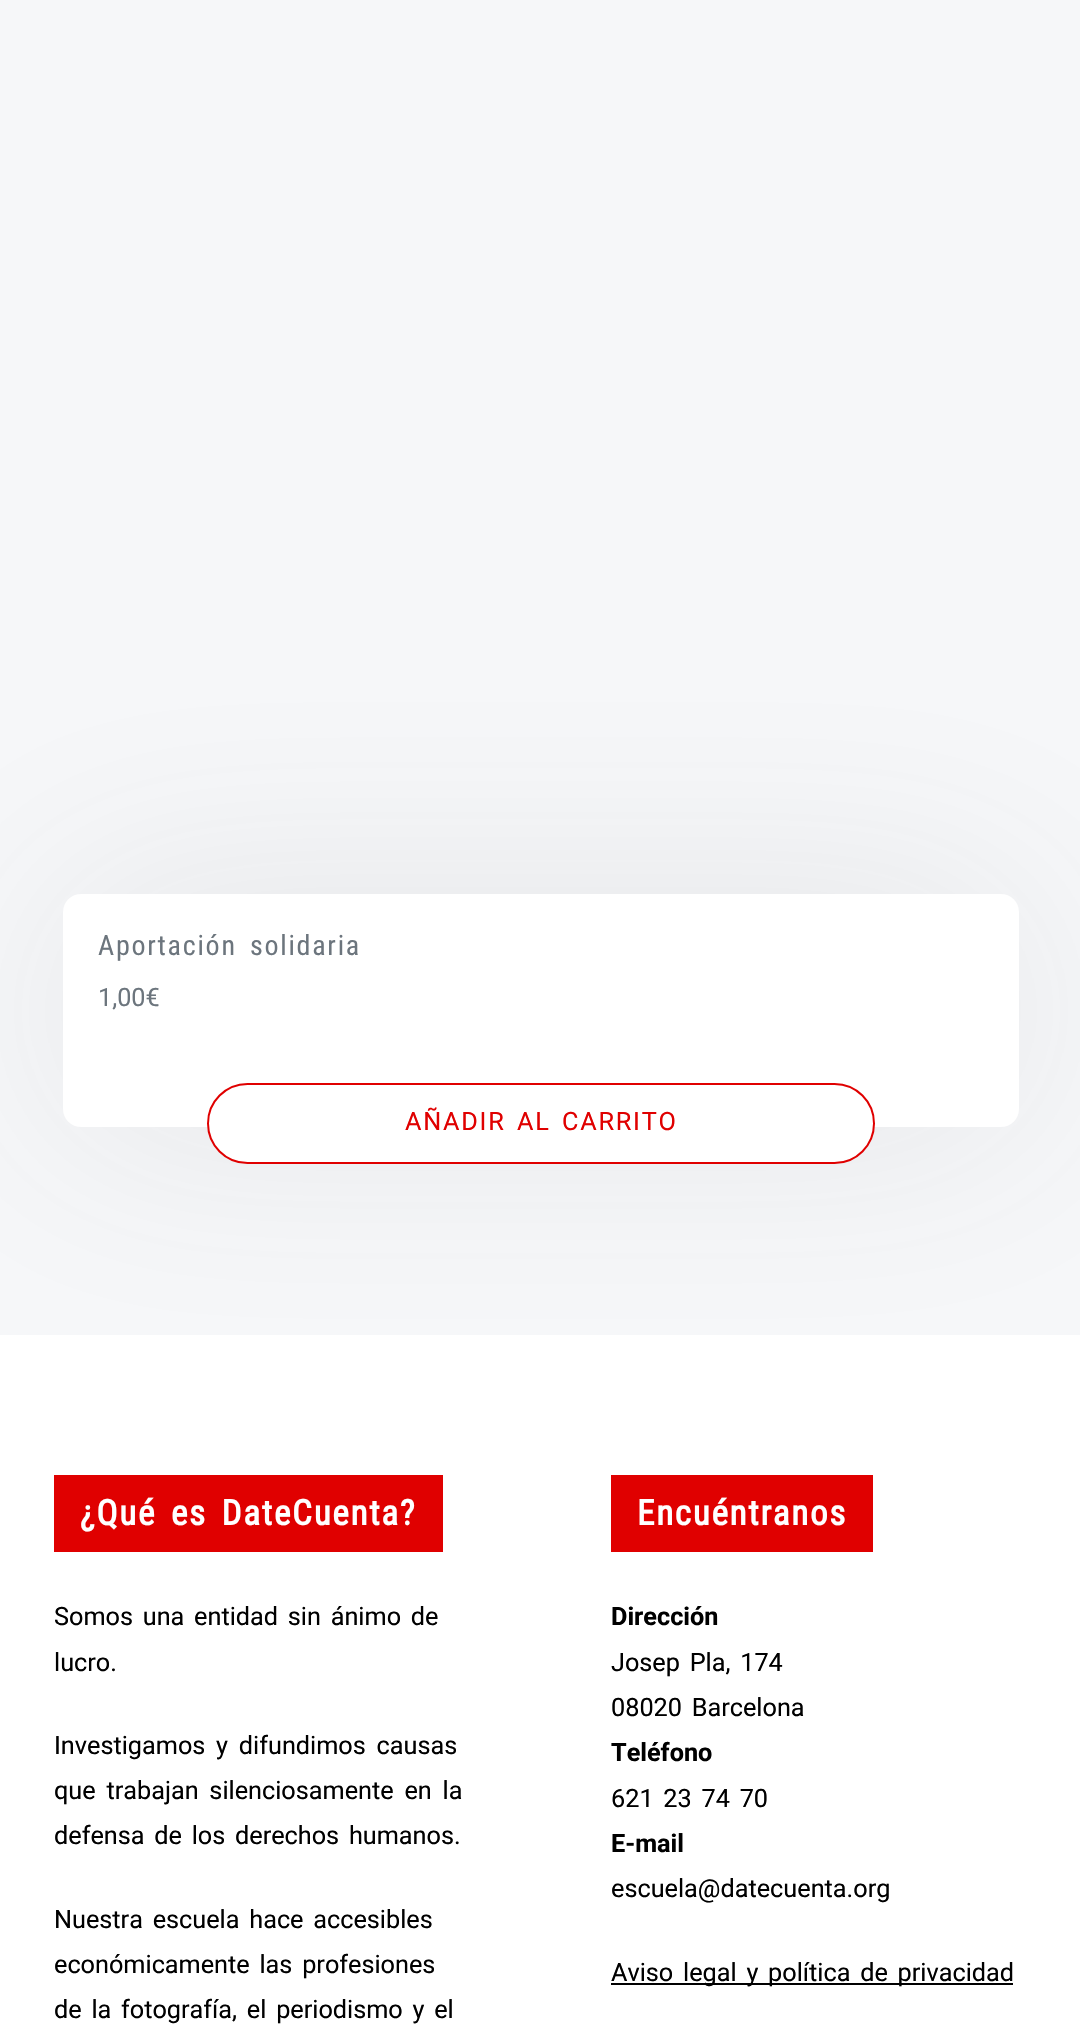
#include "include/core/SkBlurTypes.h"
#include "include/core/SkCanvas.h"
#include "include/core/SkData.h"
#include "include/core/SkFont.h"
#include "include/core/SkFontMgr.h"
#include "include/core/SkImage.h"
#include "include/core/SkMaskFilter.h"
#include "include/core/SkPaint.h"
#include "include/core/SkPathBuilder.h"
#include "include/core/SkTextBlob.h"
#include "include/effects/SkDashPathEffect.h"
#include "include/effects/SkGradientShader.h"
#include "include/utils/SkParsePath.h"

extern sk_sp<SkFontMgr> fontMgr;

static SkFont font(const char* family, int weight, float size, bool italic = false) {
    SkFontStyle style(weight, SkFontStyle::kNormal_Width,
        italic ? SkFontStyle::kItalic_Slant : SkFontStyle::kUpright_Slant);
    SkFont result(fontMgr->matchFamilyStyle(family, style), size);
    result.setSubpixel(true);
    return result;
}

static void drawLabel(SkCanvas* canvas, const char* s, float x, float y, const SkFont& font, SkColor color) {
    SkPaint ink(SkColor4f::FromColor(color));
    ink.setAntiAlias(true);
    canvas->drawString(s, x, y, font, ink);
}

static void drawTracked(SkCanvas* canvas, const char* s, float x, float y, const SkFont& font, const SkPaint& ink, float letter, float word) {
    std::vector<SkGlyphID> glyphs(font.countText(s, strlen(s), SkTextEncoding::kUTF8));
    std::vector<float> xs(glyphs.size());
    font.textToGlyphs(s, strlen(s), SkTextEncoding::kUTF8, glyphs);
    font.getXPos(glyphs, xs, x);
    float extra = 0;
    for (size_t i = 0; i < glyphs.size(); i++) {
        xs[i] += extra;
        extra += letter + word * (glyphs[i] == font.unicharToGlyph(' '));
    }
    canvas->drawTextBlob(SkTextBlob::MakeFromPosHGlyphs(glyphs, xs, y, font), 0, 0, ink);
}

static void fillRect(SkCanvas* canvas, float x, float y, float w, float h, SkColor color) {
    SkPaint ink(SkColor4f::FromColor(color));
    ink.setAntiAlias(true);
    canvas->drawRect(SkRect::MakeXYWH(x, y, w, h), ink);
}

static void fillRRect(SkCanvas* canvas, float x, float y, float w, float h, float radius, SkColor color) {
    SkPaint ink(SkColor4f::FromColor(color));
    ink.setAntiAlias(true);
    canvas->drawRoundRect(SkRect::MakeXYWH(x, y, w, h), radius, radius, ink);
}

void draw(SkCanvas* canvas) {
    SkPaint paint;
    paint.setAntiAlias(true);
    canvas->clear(0xFFF6F7F9);
    fillRect(canvas, 0, 1335, 1080, 708, 0xFFFFFFFF);
    paint.setColor(0x1A4A4A4A);
    paint.setMaskFilter(SkMaskFilter::MakeBlur(kNormal_SkBlurStyle, 114.5f));
    canvas->drawRoundRect(SkRect::MakeXYWH(63, 894, 956, 233), 18, 18, paint);
    paint.setMaskFilter(nullptr);
    fillRRect(canvas, 63, 894, 956, 233, 18, 0xFFFFFFFF);
    SkFont font1 = font("Roboto Condensed", 400, 28);
    paint.setColor(0xFF6C757D);
    drawTracked(canvas, "Aportación solidaria", 98, 955, font1, paint, 1.75f, 5);
    SkFont font2 = font("Roboto", 400, 25.25f);
    drawLabel(canvas, "1,00€", 98, 1006, font2, 0xFF6C757D);
    paint.setColor(0xFFFFFFFF);
    canvas->drawRoundRect(SkRect::MakeXYWH(208, 1084, 666, 79), 39.5f, 39.5f, paint);
    paint.setStroke(true);
    paint.setStrokeWidth(2);
    paint.setColor(0xFFE00000);
    canvas->drawRoundRect(SkRect::MakeXYWH(208, 1084, 666, 79), 39.5f, 39.5f, paint);
    paint.setStroke(false);
    drawTracked(canvas, "AÑADIR AL CARRITO", 405, 1130, font2, paint, 1.75f, 3.5f);
    fillRect(canvas, 54, 1475, 389, 77, 0xFFE00000);
    SkFont font3 = font("Roboto Condensed", 700, 35);
    paint.setColor(0xFFFFFFFF);
    drawTracked(canvas, "¿Qué es DateCuenta?", 80, 1525, font3, paint, 1.75f, 5);
    paint.setColor(0xFF000000);
    drawTracked(canvas, "Somos una entidad sin ánimo de", 54, 1625, font2, paint, 0, 3.5f);
    drawLabel(canvas, "lucro.", 54, 1671, font2, 0xFF000000);
    drawTracked(canvas, "Investigamos y difundimos causas", 54, 1754, font2, paint, 0, 4.5f);
    drawTracked(canvas, "que trabajan silenciosamente en la", 54, 1799, font2, paint, 0, 4.5f);
    drawTracked(canvas, "defensa de los derechos humanos.", 54, 1844, font2, paint, 0, 3.5f);
    drawTracked(canvas, "Nuestra escuela hace accesibles", 54, 1928, font2, paint, 0, 3.5f);
    drawTracked(canvas, "económicamente las profesiones", 54, 1973, font2, paint, 0, 3.5f);
    drawTracked(canvas, "de la fotografía, el periodismo y el", 54, 2018, font2, paint, 0, 3.5f);
    fillRect(canvas, 611, 1475, 262, 77, 0xFFE00000);
    paint.setColor(0xFFFFFFFF);
    drawTracked(canvas, "Encuéntranos", 637, 1525, font3, paint, 1.75f, 0);
    SkFont font4 = font("Roboto", 700, 25.25f);
    drawLabel(canvas, "Dirección", 611, 1625, font4, 0xFF000000);
    paint.setColor(0xFF000000);
    drawTracked(canvas, "Josep Pla, 174", 611, 1671, font2, paint, 0, 3.5f);
    drawTracked(canvas, "08020 Barcelona", 611, 1716, font2, paint, 0, 3.5f);
    drawLabel(canvas, "Teléfono", 611, 1761, font4, 0xFF000000);
    drawTracked(canvas, "621 23 74 70", 611, 1807, font2, paint, 0, 3.5f);
    drawLabel(canvas, "E-mail", 611, 1852, font4, 0xFF000000);
    drawLabel(canvas, "escuela@datecuenta.org", 611, 1897, font2, 0xFF000000);
    fillRect(canvas, 611, 1983, 402, 2, 0xFF000000);
    drawTracked(canvas, "Aviso legal y política de privacidad", 611, 1981, font2, paint, 0, 3.5f);
}
